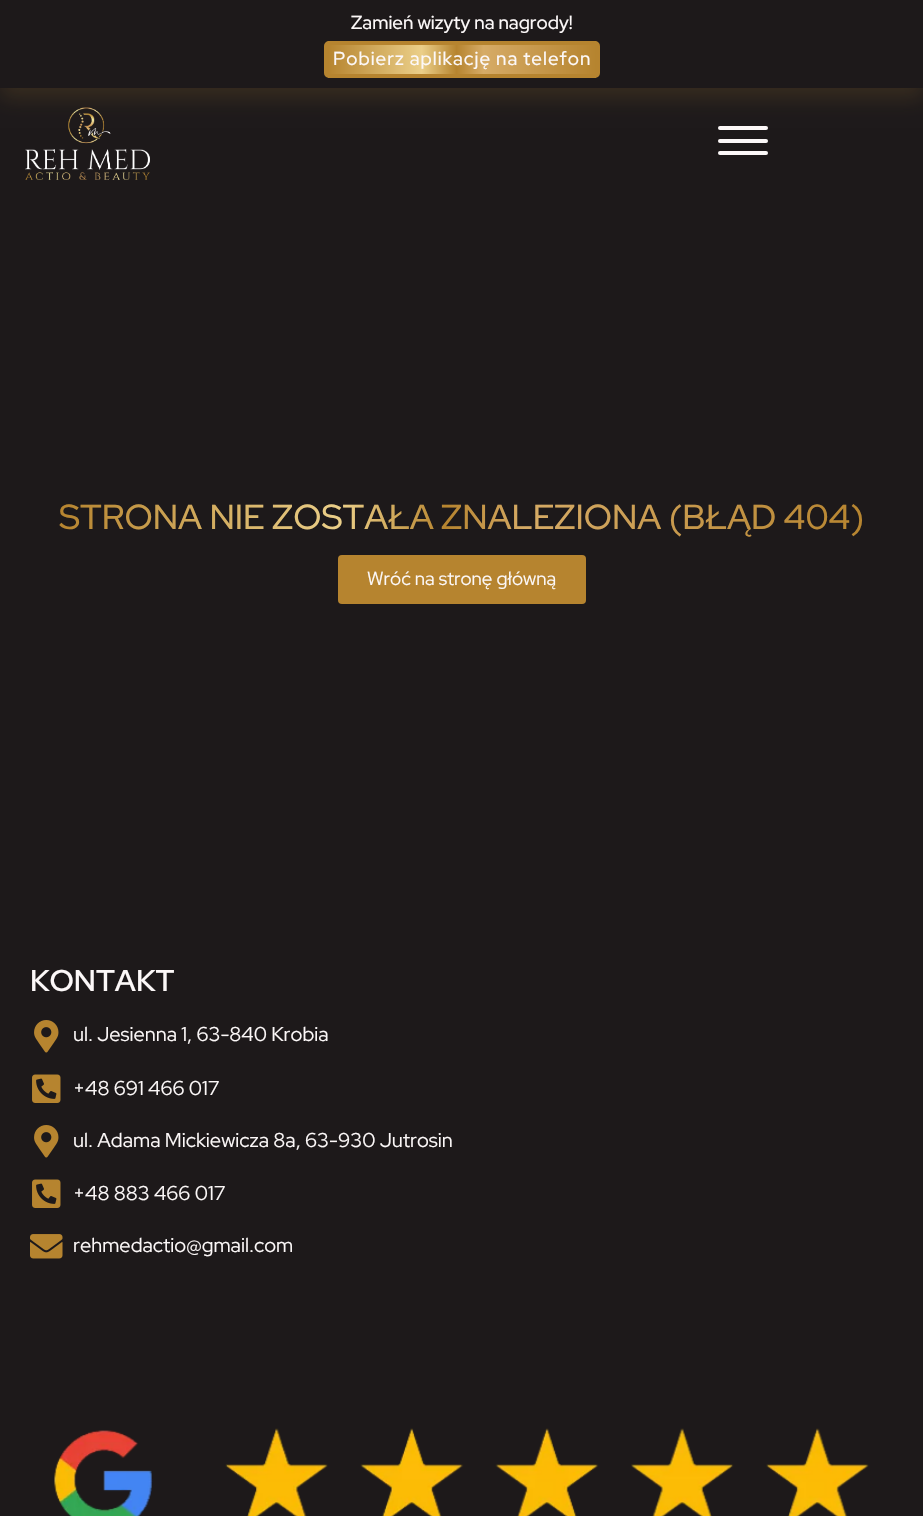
#include "include/core/SkBlurTypes.h"
#include "include/core/SkCanvas.h"
#include "include/core/SkData.h"
#include "include/core/SkFont.h"
#include "include/core/SkFontMgr.h"
#include "include/core/SkImage.h"
#include "include/core/SkMaskFilter.h"
#include "include/core/SkPaint.h"
#include "include/core/SkPathBuilder.h"
#include "include/core/SkTextBlob.h"
#include "include/effects/SkDashPathEffect.h"
#include "include/effects/SkGradientShader.h"
#include "include/utils/SkParsePath.h"

extern sk_sp<SkFontMgr> fontMgr;

static SkFont font(const char* family, int weight, float size, bool italic = false) {
    SkFontStyle style(weight, SkFontStyle::kNormal_Width,
        italic ? SkFontStyle::kItalic_Slant : SkFontStyle::kUpright_Slant);
    SkFont result(fontMgr->matchFamilyStyle(family, style), size);
    result.setSubpixel(true);
    return result;
}

static void drawLabel(SkCanvas* canvas, const char* s, float x, float y, const SkFont& font, SkColor color) {
    SkPaint ink(SkColor4f::FromColor(color));
    ink.setAntiAlias(true);
    canvas->drawString(s, x, y, font, ink);
}

static void drawTracked(SkCanvas* canvas, const char* s, float x, float y, const SkFont& font, const SkPaint& ink, float letter, float word) {
    std::vector<SkGlyphID> glyphs(font.countText(s, strlen(s), SkTextEncoding::kUTF8));
    std::vector<float> xs(glyphs.size());
    font.textToGlyphs(s, strlen(s), SkTextEncoding::kUTF8, glyphs);
    font.getXPos(glyphs, xs, x);
    float extra = 0;
    for (size_t i = 0; i < glyphs.size(); i++) {
        xs[i] += extra;
        extra += letter + word * (glyphs[i] == font.unicharToGlyph(' '));
    }
    canvas->drawTextBlob(SkTextBlob::MakeFromPosHGlyphs(glyphs, xs, y, font), 0, 0, ink);
}

static void fillRRect(SkCanvas* canvas, float x, float y, float w, float h, float radius, SkColor color) {
    SkPaint ink(SkColor4f::FromColor(color));
    ink.setAntiAlias(true);
    canvas->drawRoundRect(SkRect::MakeXYWH(x, y, w, h), radius, radius, ink);
}

static void drawPhoto(SkCanvas* canvas, const char* path, float x, float y, float w, float h) {
    auto image = SkImages::DeferredFromEncodedData(SkData::MakeFromFileName(path));
    canvas->drawImageRect(image, SkRect::MakeXYWH(x, y, w, h), SkSamplingOptions());
}

static SkPath parsePath(const char* data, bool evenOdd = false) {
    SkPath result = *SkParsePath::FromSVGString(data);
    if (evenOdd) result.setFillType(SkPathFillType::kEvenOdd);
    return result;
}

void draw(SkCanvas* canvas) {
    SkPaint paint;
    paint.setAntiAlias(true);
    canvas->clear(0xFF1D191A);
    canvas->save();
    canvas->clipPath(parsePath("M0 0H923V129H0ZM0 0H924V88H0Z", true), true);
    paint.setColor(0x2BB88733);
    paint.setMaskFilter(SkMaskFilter::MakeBlur(kNormal_SkBlurStyle, 10));
    canvas->drawRect(SkRect::MakeXYWH(0, 10, 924, 88), paint);
    paint.setMaskFilter(nullptr);
    canvas->restore();
    SkFont font1 = font("Red Hat Display", 500, 18.75f);
    drawLabel(canvas, "Zamień wizyty na nagrody!", 351, 29, font1, 0xFFFCF8F8);
    {
        const SkColor colors[] = {0xFFB6842F, 0xFFEBCF89, 0xFFB6842F, 0xFFD6AB66, 0xFFB6842F};
        const float stops[] = {0, 0.35f, 0.48f, 0.58f, 1};
        const SkPoint ends[] = {{328, 59}, {596, 59}};
        paint.setShader(SkGradientShader::MakeLinear(ends, colors, stops, 5, SkTileMode::kClamp));
        paint.setAlpha(255);
    }
    canvas->drawRect(SkRect::MakeXYWH(328, 41, 268, 37), paint);
    paint.setStroke(true);
    paint.setStrokeWidth(4);
    paint.setShader(nullptr);
    paint.setColor(0xFFB6842F);
    canvas->drawRoundRect(SkRect::MakeXYWH(326, 43, 272, 33), 3, 3, paint);
    paint.setStroke(false);
    paint.setColor(0xFFFCF8F8);
    drawTracked(canvas, "Pobierz aplikację na telefon", 333, 65, font1, paint, 1, 0);
    drawPhoto(canvas, "assets/img1.png", 25, 107, 125, 73);
    fillRRect(canvas, 718, 151, 50, 4, 2, 0xFFFCF8F8);
    fillRRect(canvas, 718, 126, 50, 4, 2, 0xFFFCF8F8);
    fillRRect(canvas, 718, 139, 50, 4, 2, 0xFFFCF8F8);
    SkFont font2 = font("Red Hat Display", 500, 34.8f);
    {
        const SkColor colors[] = {0xFFB6842F, 0xFFEBCF89, 0xFFB6842F, 0xFFD6AB66, 0xFFB6842F};
        const float stops[] = {0, 0.35f, 0.48f, 0.58f, 1};
        const SkPoint ends[] = {{59, 516}, {865, 516}};
        paint.setShader(SkGradientShader::MakeLinear(ends, colors, stops, 5, SkTileMode::kClamp));
        paint.setAlpha(255);
    }
    canvas->drawString("STRONA NIE ZOSTAŁA ZNALEZIONA (BŁĄD 404)", 59, 529, font2, paint);
    fillRRect(canvas, 338, 555, 248, 49, 4, 0xFFB6842F);
    SkFont font3 = font("Red Hat Display", 400, 18.75f);
    drawLabel(canvas, "Wróć na stronę główną", 367, 585, font3, 0xFFFCF8F8);
    SkFont font4 = font("Red Hat Display", 600, 30);
    drawLabel(canvas, "KONTAKT", 30, 991, font4, 0xFFFCF8F8);
    drawPhoto(canvas, "assets/img2.png", 34, 1020, 25, 33);
    SkFont font5 = font("Red Hat Display", 400, 20);
    drawLabel(canvas, "ul. Jesienna 1, 63-840 Krobia", 73, 1041, font5, 0xFFFCF8F8);
    drawPhoto(canvas, "assets/img3.png", 32, 1074, 29, 29);
    drawLabel(canvas, "+48 691 466 017", 73, 1095, font5, 0xFFFCF8F8);
    drawPhoto(canvas, "assets/img2.png", 34, 1125, 25, 33);
    drawLabel(canvas, "ul. Adama Mickiewicza 8a, 63-930 Jutrosin", 73, 1147, font5, 0xFFFCF8F8);
    drawPhoto(canvas, "assets/img3.png", 32, 1179, 29, 29);
    drawLabel(canvas, "+48 883 466 017", 73, 1200, font5, 0xFFFCF8F8);
    drawPhoto(canvas, "assets/img4.png", 30, 1234, 33, 25);
    drawLabel(canvas, "rehmedactio@gmail.com", 73, 1252, font5, 0xFFFCF8F8);
    drawPhoto(canvas, "assets/img5.png", 54, 1428, 815, 88);
}
